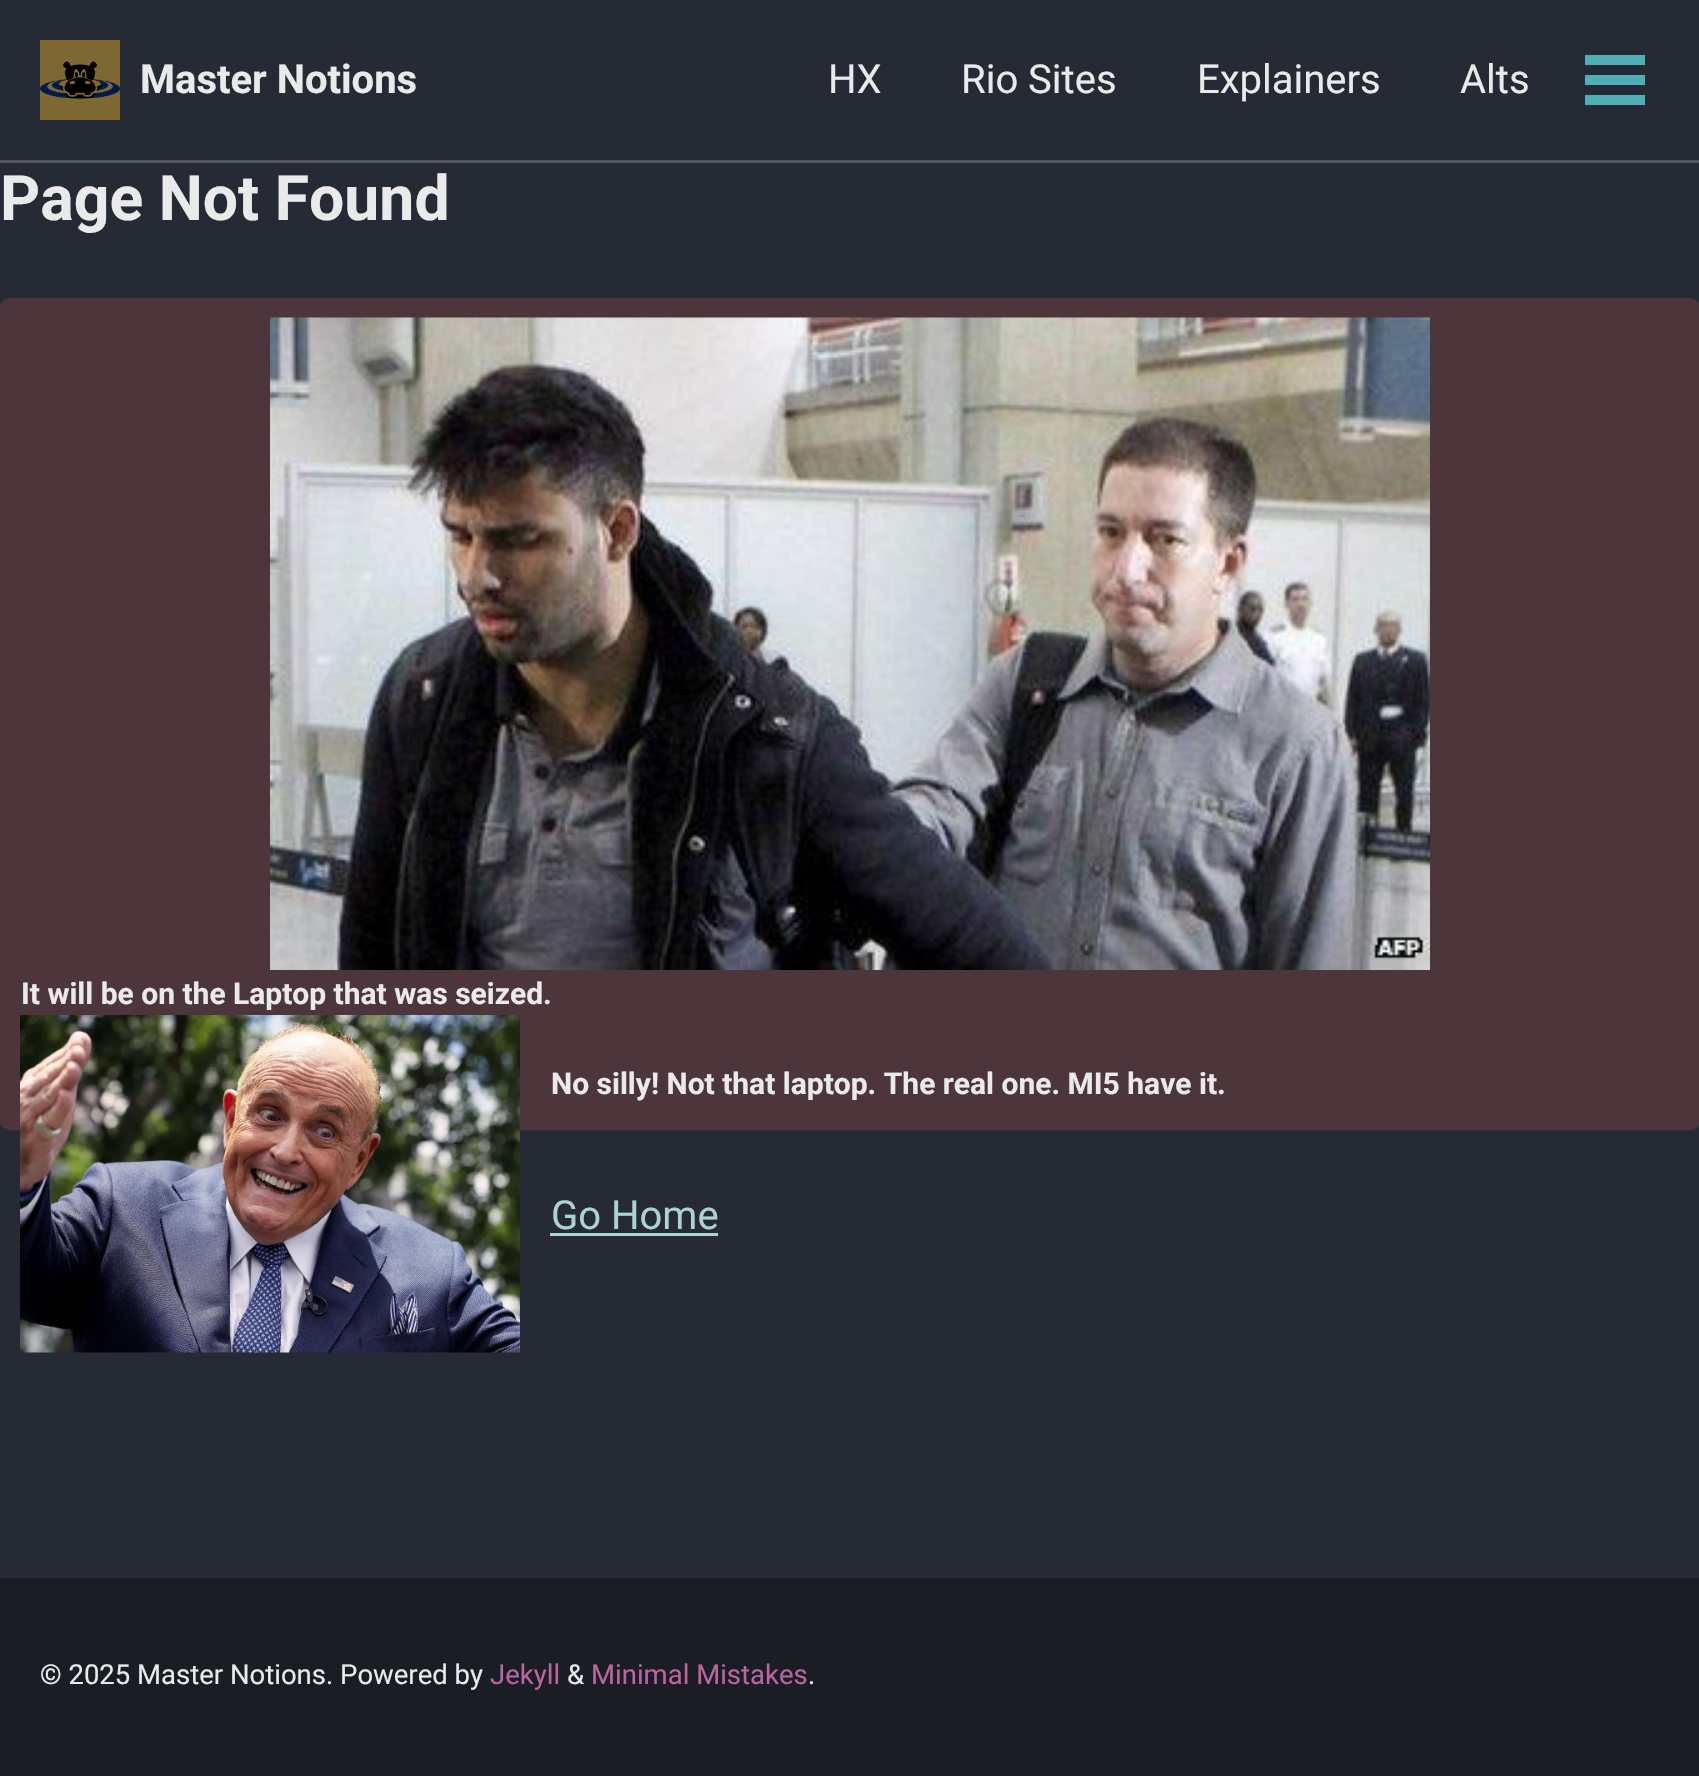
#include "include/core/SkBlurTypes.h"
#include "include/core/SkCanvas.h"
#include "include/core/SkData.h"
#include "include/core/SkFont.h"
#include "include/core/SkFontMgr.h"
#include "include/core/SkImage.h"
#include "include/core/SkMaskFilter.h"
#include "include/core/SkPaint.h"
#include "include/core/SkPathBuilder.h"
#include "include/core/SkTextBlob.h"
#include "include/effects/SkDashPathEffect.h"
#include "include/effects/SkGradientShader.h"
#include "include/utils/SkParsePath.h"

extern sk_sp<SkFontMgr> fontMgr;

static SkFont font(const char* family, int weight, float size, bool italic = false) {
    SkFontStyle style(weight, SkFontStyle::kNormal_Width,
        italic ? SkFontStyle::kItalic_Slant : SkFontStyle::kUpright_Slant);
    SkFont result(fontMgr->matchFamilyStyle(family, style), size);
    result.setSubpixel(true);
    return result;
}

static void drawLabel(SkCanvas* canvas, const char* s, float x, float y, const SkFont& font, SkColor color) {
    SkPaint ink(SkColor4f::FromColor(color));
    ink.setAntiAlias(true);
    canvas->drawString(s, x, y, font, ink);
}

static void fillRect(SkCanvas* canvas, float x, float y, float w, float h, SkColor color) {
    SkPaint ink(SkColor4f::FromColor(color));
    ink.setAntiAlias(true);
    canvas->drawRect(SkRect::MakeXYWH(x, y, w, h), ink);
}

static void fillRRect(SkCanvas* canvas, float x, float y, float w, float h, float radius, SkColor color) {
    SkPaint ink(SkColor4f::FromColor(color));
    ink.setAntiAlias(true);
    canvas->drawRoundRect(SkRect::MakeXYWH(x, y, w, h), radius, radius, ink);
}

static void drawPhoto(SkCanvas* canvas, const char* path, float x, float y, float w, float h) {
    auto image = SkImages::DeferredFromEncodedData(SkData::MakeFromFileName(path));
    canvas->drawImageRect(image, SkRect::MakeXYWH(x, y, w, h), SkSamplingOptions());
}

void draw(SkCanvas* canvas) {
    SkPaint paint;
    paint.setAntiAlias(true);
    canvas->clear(0xFF252A34);
    fillRect(canvas, 0, 160, 1699, 3, 0xFF51555D);
    drawPhoto(canvas, "assets/img1.png", 40, 40, 80, 80);
    SkFont font1 = font("Roboto", 700, 40);
    drawLabel(canvas, "Master Notions", 140, 93, font1, 0xFFEAEAEA);
    SkFont font2 = font("Roboto", 400, 40);
    drawLabel(canvas, "HX", 828, 93, font2, 0xFFEAEAEA);
    drawLabel(canvas, "Rio Sites", 961, 93, font2, 0xFFEAEAEA);
    drawLabel(canvas, "Explainers", 1197, 93, font2, 0xFFEAEAEA);
    drawLabel(canvas, "Alts", 1460, 93, font2, 0xFFEAEAEA);
    fillRect(canvas, 1585, 75, 60, 10, 0xFF4FAFB9);
    fillRect(canvas, 1585, 55, 60, 10, 0xFF4FAFB9);
    fillRect(canvas, 1585, 95, 60, 10, 0xFF4FAFB9);
    SkFont font3 = font("Roboto", 700, 62.5f);
    drawLabel(canvas, "Page Not Found", 0, 220, font3, 0xFFEAEAEA);
    paint.setColor(0x40EE5F5B);
    paint.setMaskFilter(SkMaskFilter::MakeBlur(kNormal_SkBlurStyle, 1));
    canvas->drawRoundRect(SkRect::MakeXYWH(0, 300, 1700, 830), 10, 10, paint);
    paint.setMaskFilter(nullptr);
    fillRRect(canvas, 0, 298, 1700, 830, 10, 0xFF4D353C);
    drawPhoto(canvas, "assets/img2.png", 270, 317, 1160, 653);
    SkFont font4 = font("Roboto", 700, 30);
    drawLabel(canvas, "It will be on the Laptop that was seized.", 21, 1004, font4, 0xFFEAEAEA);
    drawPhoto(canvas, "assets/img3.png", 20, 1015, 500, 338);
    drawLabel(canvas, "No silly! Not that laptop. The real one. MI5 have it.", 551, 1094, font4, 0xFFEAEAEA);
    drawLabel(canvas, "Go Home", 551, 1229, font2, 0xFFACD2D6);
    fillRect(canvas, 550, 1233, 168, 3, 0xFFACD2D6);
    fillRect(canvas, 0, 1578, 1699, 198, 0xFF1A1D24);
    SkFont font5 = font("Roboto", 400, 27.5f);
    drawLabel(canvas, "© 2025 Master Notions. Powered by", 40, 1684, font5, 0xFFEAEAEA);
    drawLabel(canvas, "Jekyll", 490, 1684, font5, 0xFFBB65A0);
    drawLabel(canvas, "&", 567, 1684, font5, 0xFFEAEAEA);
    drawLabel(canvas, "Minimal Mistakes", 591, 1684, font5, 0xFFBB65A0);
    drawLabel(canvas, ".", 808, 1684, font5, 0xFFEAEAEA);
}
